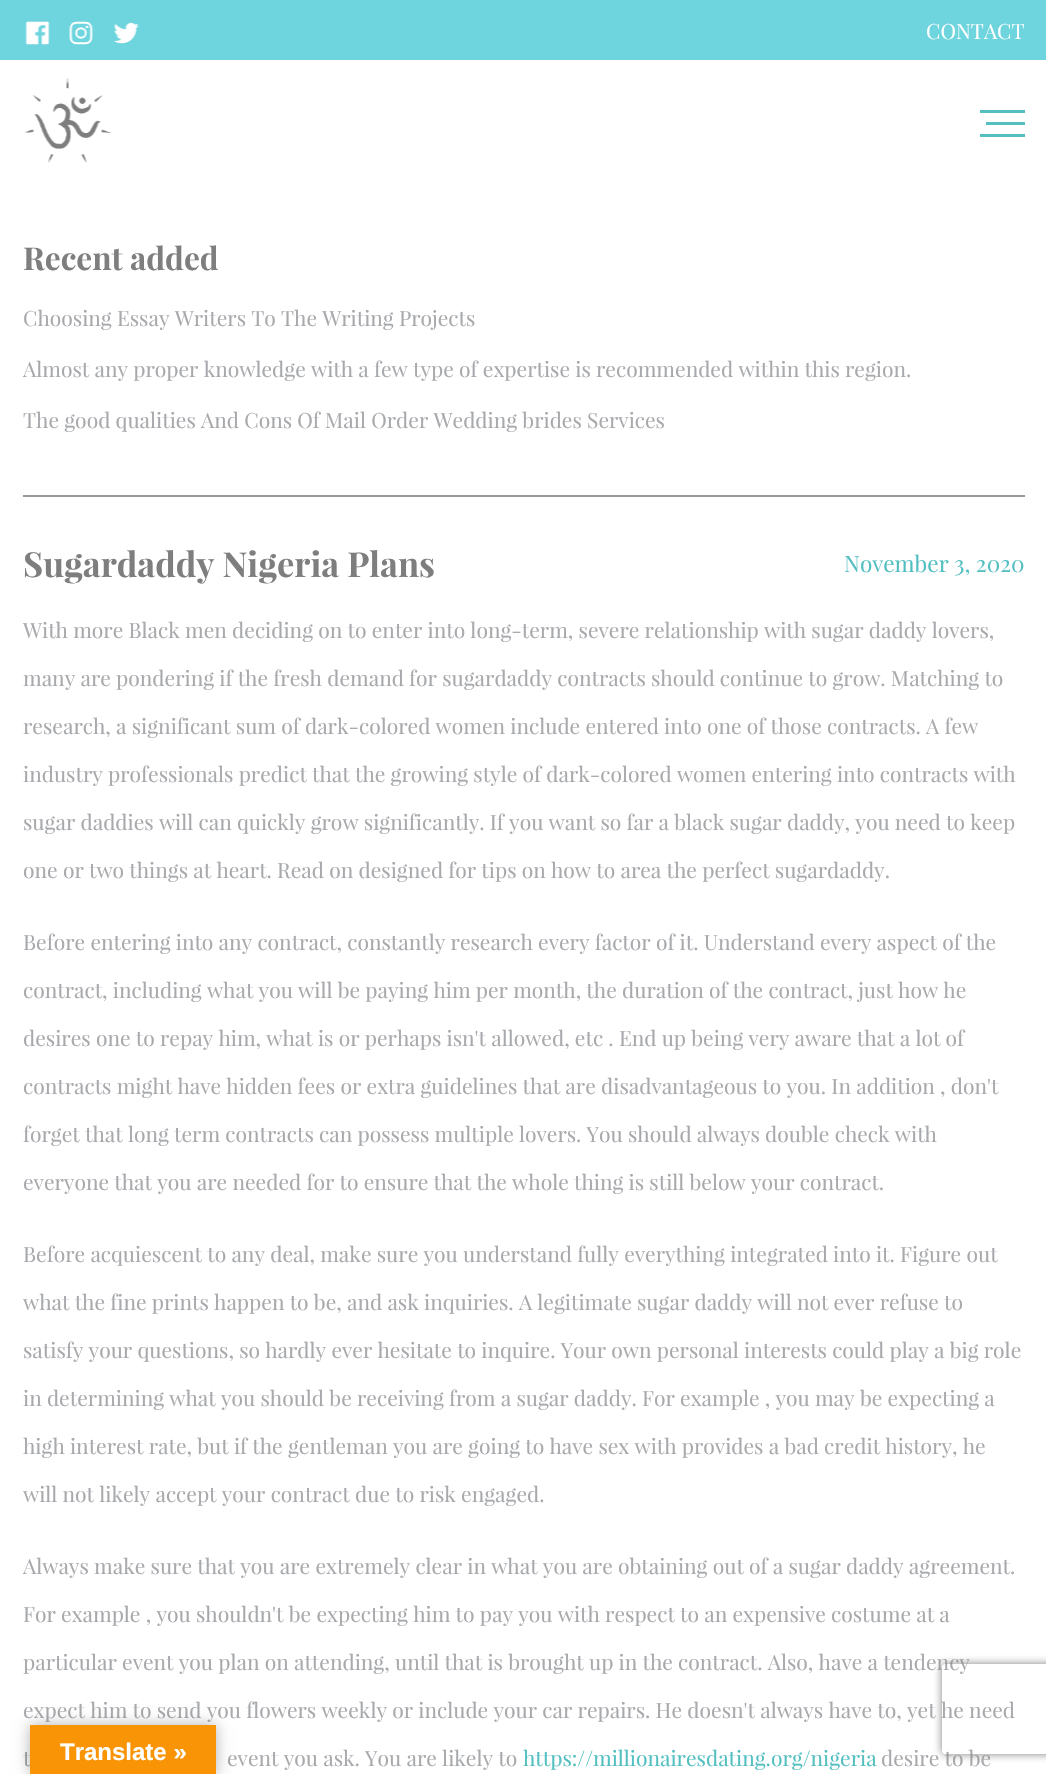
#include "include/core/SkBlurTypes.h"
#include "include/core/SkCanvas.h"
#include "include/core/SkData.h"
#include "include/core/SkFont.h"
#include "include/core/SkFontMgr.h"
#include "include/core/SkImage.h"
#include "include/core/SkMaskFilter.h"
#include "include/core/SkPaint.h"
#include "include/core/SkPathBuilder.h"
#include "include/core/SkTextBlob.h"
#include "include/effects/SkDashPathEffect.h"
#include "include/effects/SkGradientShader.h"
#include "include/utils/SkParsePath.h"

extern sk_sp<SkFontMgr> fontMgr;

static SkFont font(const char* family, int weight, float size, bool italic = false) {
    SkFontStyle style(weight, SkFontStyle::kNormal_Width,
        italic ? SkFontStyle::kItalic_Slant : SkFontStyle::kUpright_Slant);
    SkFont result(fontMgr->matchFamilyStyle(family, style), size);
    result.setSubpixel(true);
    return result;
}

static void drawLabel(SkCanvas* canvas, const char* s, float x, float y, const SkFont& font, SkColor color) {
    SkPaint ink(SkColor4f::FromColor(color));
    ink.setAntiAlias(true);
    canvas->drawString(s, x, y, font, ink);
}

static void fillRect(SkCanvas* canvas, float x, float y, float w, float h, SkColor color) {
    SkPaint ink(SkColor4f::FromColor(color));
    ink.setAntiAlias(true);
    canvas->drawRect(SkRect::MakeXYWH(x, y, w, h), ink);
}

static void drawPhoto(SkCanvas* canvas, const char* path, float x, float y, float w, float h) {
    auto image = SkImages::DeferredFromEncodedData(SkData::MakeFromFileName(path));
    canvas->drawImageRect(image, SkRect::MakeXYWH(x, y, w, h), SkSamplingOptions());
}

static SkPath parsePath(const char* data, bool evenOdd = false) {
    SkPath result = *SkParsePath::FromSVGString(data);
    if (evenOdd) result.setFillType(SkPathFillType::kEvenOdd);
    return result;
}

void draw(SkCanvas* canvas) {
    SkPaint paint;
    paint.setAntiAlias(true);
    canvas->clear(0xFFFFFFFF);
    fillRect(canvas, 0, 0, 1046, 60, 0xFF6ED4DD);
    drawPhoto(canvas, "assets/img1.png", 25, 21, 25, 24);
    drawPhoto(canvas, "assets/img2.png", 69, 21, 24, 24);
    drawPhoto(canvas, "assets/img3.png", 113, 22, 26, 22);
    SkFont font1 = font("Playfair Display", 400, 21);
    drawLabel(canvas, "CONTACT", 926, 39, font1, 0xFFFFFFFF);
    drawPhoto(canvas, "assets/img4.png", 24, 78, 88, 85);
    fillRect(canvas, 980, 110, 45, 3, 0xFF53BFC1);
    fillRect(canvas, 986, 122, 39, 3, 0xFF53BFC1);
    fillRect(canvas, 980, 134, 45, 3, 0xFF53BFC1);
    fillRect(canvas, 23, 495, 1002, 2, 0xFF999999);
    SkFont font2 = font("Playfair Display", 700, 31.5f);
    drawLabel(canvas, "Recent added", 23, 270, font2, 0xFF7E7E7E);
    drawLabel(canvas, "Choosing Essay Writers To The Writing Projects", 23, 326, font1, 0xFFA7A9AC);
    drawLabel(canvas, "Almost any proper knowledge with a few type of expertise is recommended within this region.", 23, 377, font1, 0xFFA7A9AC);
    drawLabel(canvas, "The good qualities And Cons Of Mail Order Wedding brides Services", 23, 428, font1, 0xFFA7A9AC);
    SkFont font3 = font("Playfair Display", 700, 34.5f);
    drawLabel(canvas, "Sugardaddy Nigeria Plans", 23, 577, font3, 0xFF7E7E7E);
    SkFont font4 = font("Playfair Display", 400, 22.5f);
    drawLabel(canvas, "November 3, 2020", 844, 572, font4, 0xFF53BFC1);
    drawLabel(canvas, "With more Black men deciding on to enter into long-term, severe relationship with sugar daddy lovers,", 23, 638, font1, 0xFFA7A9AC);
    drawLabel(canvas, "many are pondering if the fresh demand for sugardaddy contracts should continue to grow. Matching to", 23, 686, font1, 0xFFA7A9AC);
    drawLabel(canvas, "research, a significant sum of dark-colored women include entered into one of those contracts. A few", 23, 734, font1, 0xFFA7A9AC);
    drawLabel(canvas, "industry professionals predict that the growing style of dark-colored women entering into contracts with", 23, 782, font1, 0xFFA7A9AC);
    drawLabel(canvas, "sugar daddies will can quickly grow significantly. If you want so far a black sugar daddy, you need to keep", 23, 830, font1, 0xFFA7A9AC);
    drawLabel(canvas, "one or two things at heart. Read on designed for tips on how to area the perfect sugardaddy.", 23, 878, font1, 0xFFA7A9AC);
    drawLabel(canvas, "Before entering into any contract, constantly research every factor of it. Understand every aspect of the", 23, 950, font1, 0xFFA7A9AC);
    drawLabel(canvas, "contract, including what you will be paying him per month, the duration of the contract, just how he", 23, 998, font1, 0xFFA7A9AC);
    drawLabel(canvas, "desires one to repay him, what is or perhaps isn't allowed, etc . End up being very aware that a lot of", 23, 1046, font1, 0xFFA7A9AC);
    drawLabel(canvas, "contracts might have hidden fees or extra guidelines that are disadvantageous to you. In addition , don't", 23, 1094, font1, 0xFFA7A9AC);
    drawLabel(canvas, "forget that long term contracts can possess multiple lovers. You should always double check with", 23, 1142, font1, 0xFFA7A9AC);
    drawLabel(canvas, "everyone that you are needed for to ensure that the whole thing is still below your contract.", 23, 1190, font1, 0xFFA7A9AC);
    drawLabel(canvas, "Before acquiescent to any deal, make sure you understand fully everything integrated into it. Figure out", 23, 1262, font1, 0xFFA7A9AC);
    drawLabel(canvas, "what the fine prints happen to be, and ask inquiries. A legitimate sugar daddy will not ever refuse to", 23, 1310, font1, 0xFFA7A9AC);
    drawLabel(canvas, "satisfy your questions, so hardly ever hesitate to inquire. Your own personal interests could play a big role", 23, 1358, font1, 0xFFA7A9AC);
    drawLabel(canvas, "in determining what you should be receiving from a sugar daddy. For example , you may be expecting a", 23, 1406, font1, 0xFFA7A9AC);
    drawLabel(canvas, "high interest rate, but if the gentleman you are going to have sex with provides a bad credit history, he", 23, 1454, font1, 0xFFA7A9AC);
    drawLabel(canvas, "will not likely accept your contract due to risk engaged.", 23, 1502, font1, 0xFFA7A9AC);
    drawLabel(canvas, "Always make sure that you are extremely clear in what you are obtaining out of a sugar daddy agreement.", 23, 1574, font1, 0xFFA7A9AC);
    drawLabel(canvas, "For example , you shouldn't be expecting him to pay you with respect to an expensive costume at a", 23, 1622, font1, 0xFFA7A9AC);
    drawLabel(canvas, "particular event you plan on attending, until that is brought up in the contract. Also, have a tendency", 23, 1670, font1, 0xFFA7A9AC);
    drawLabel(canvas, "expect him to send you flowers weekly or include your car repairs. He doesn't always have to, yet he need", 23, 1718, font1, 0xFFA7A9AC);
    drawLabel(canvas, "t", 23, 1766, font1, 0xFFA7A9AC);
    drawLabel(canvas, "event you ask. You are likely to", 227, 1766, font1, 0xFFA7A9AC);
    drawLabel(canvas, "https://millionairesdating.org/nigeria", 523, 1766, font1, 0xFF53BFC1);
    drawLabel(canvas, "desire to be", 881, 1766, font1, 0xFFA7A9AC);
    paint.setColor(0x4D000000);
    paint.setMaskFilter(SkMaskFilter::MakeBlur(kNormal_SkBlurStyle, 7));
    canvas->drawRect(SkRect::MakeXYWH(30, 1725, 186, 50), paint);
    paint.setMaskFilter(nullptr);
    fillRect(canvas, 30, 1725, 186, 49, 0xFFF89406);
    SkFont font5 = font("Liberation Sans", 700, 24);
    drawLabel(canvas, "Translate »", 60, 1760, font5, 0xFFFFFFFF);
    canvas->save();
    canvas->clipPath(parsePath("M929 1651H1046V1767H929ZM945 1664H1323C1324.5 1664 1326 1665.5 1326 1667V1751C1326 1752.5 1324.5 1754 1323 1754H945C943.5 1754 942 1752.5 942 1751V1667C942 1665.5 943.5 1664 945 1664Z", true), true);
    paint.setColor(0xFF808080);
    paint.setMaskFilter(SkMaskFilter::MakeBlur(kNormal_SkBlurStyle, 4));
    canvas->drawRoundRect(SkRect::MakeXYWH(942, 1664, 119, 90), 3, 3, paint);
    paint.setMaskFilter(nullptr);
    canvas->restore();
}
